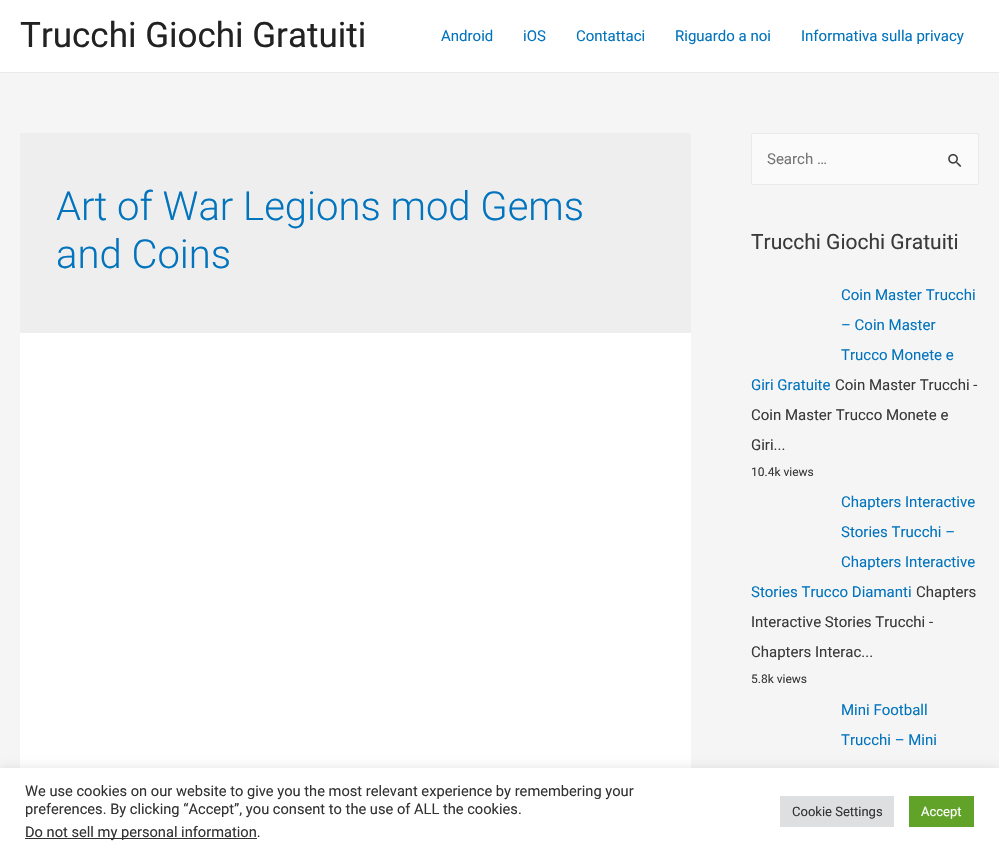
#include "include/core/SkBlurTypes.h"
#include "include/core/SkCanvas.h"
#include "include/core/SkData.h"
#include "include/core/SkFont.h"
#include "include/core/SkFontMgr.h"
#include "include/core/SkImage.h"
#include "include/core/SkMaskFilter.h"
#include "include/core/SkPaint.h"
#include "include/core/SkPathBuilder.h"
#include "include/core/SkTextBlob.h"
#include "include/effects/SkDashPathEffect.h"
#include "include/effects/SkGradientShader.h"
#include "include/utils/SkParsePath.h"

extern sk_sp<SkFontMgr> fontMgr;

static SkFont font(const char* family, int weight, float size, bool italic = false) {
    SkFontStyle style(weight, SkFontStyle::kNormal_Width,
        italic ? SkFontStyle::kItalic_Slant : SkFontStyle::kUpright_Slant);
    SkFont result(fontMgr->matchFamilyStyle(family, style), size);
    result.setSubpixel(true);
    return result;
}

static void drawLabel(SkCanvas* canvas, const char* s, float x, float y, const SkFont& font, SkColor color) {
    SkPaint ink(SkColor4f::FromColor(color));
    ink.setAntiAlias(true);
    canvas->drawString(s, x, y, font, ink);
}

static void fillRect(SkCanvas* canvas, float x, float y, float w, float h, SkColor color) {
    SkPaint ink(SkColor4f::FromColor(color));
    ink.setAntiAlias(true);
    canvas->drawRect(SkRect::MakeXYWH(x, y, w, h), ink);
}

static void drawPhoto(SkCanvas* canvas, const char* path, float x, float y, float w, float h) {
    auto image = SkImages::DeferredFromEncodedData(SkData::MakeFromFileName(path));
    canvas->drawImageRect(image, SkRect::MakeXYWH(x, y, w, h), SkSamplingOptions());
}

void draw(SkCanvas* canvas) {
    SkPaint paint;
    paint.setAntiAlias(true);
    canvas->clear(0xFFF5F5F5);
    fillRect(canvas, 0, 0, 999, 72, 0xFFFFFFFF);
    fillRect(canvas, 0, 72, 999, 1, 0xFFEAEAEA);
    SkFont font1 = font("Roboto", 400, 35);
    drawLabel(canvas, "Trucchi Giochi Gratuiti", 20, 47, font1, 0xFF222222);
    SkFont font2 = font("Roboto", 400, 15);
    drawLabel(canvas, "Android", 441, 41, font2, 0xFF0274BE);
    drawLabel(canvas, "iOS", 523, 41, font2, 0xFF0274BE);
    drawLabel(canvas, "Contattaci", 576, 41, font2, 0xFF0274BE);
    drawLabel(canvas, "Riguardo a noi", 675, 41, font2, 0xFF0274BE);
    drawLabel(canvas, "Informativa sulla privacy", 801, 41, font2, 0xFF0274BE);
    fillRect(canvas, 20, 133, 671, 200, 0xFFEEEEEE);
    SkFont font3 = font("Roboto", 300, 40);
    drawLabel(canvas, "Art of War Legions mod Gems", 56, 220, font3, 0xFF0274BE);
    drawLabel(canvas, "and Coins", 56, 268, font3, 0xFF0274BE);
    fillRect(canvas, 20, 333, 671, 435, 0xFFFFFFFF);
    paint.setColor(0xFFFAFAFA);
    canvas->drawRoundRect(SkRect::MakeXYWH(751.5f, 133.5f, 227, 51), 1.5f, 1.5f, paint);
    paint.setStroke(true);
    paint.setStrokeWidth(1);
    paint.setColor(0xFFEAEAEA);
    canvas->drawRoundRect(SkRect::MakeXYWH(751.5f, 133.5f, 227, 51), 1.5f, 1.5f, paint);
    drawLabel(canvas, "Search …", 767, 164, font2, 0xFF757575);
    drawPhoto(canvas, "assets/img1.png", 948, 153, 14, 14);
    SkFont font4 = font("Roboto", 400, 21);
    drawLabel(canvas, "Trucchi Giochi Gratuiti", 751, 249, font4, 0xFF3A3A3A);
    drawLabel(canvas, "Coin Master Trucchi", 841, 300, font2, 0xFF0274BE);
    drawLabel(canvas, "– Coin Master", 841, 330, font2, 0xFF0274BE);
    drawLabel(canvas, "Trucco Monete e", 841, 360, font2, 0xFF0274BE);
    drawLabel(canvas, "Giri Gratuite", 751, 390, font2, 0xFF0274BE);
    drawLabel(canvas, "Coin Master Trucchi -", 835, 390, font2, 0xFF3A3A3A);
    drawLabel(canvas, "Coin Master Trucco Monete e", 751, 420, font2, 0xFF3A3A3A);
    drawLabel(canvas, "Giri...", 751, 450, font2, 0xFF3A3A3A);
    SkFont font5 = font("Roboto", 400, 12);
    drawLabel(canvas, "10.4k views", 751, 476, font5, 0xFF3A3A3A);
    drawLabel(canvas, "Chapters Interactive", 841, 507, font2, 0xFF0274BE);
    drawLabel(canvas, "Stories Trucchi –", 841, 537, font2, 0xFF0274BE);
    drawLabel(canvas, "Chapters Interactive", 841, 567, font2, 0xFF0274BE);
    drawLabel(canvas, "Stories Trucco Diamanti", 751, 597, font2, 0xFF0274BE);
    drawLabel(canvas, "Chapters", 916, 597, font2, 0xFF3A3A3A);
    drawLabel(canvas, "Interactive Stories Trucchi -", 751, 627, font2, 0xFF3A3A3A);
    drawLabel(canvas, "Chapters Interac...", 751, 657, font2, 0xFF3A3A3A);
    drawLabel(canvas, "5.8k views", 751, 683, font5, 0xFF3A3A3A);
    drawLabel(canvas, "Mini Football", 841, 715, font2, 0xFF0274BE);
    drawLabel(canvas, "Trucchi – Mini", 841, 745, font2, 0xFF0274BE);
    paint.setStroke(false);
    paint.setColor(0x4DACABAB);
    paint.setMaskFilter(SkMaskFilter::MakeBlur(kNormal_SkBlurStyle, 5));
    canvas->drawRect(SkRect::MakeXYWH(0, 767, 999, 87), paint);
    paint.setMaskFilter(nullptr);
    fillRect(canvas, 0, 768, 999, 87, 0xFFFFFFFF);
    SkFont font6 = font("Roboto", 400, 14.65f);
    drawLabel(canvas, "We use cookies on our website to give you the most relevant experience by remembering your", 25, 796, font6, 0xFF333333);
    drawLabel(canvas, "preferences. By clicking “Accept”, you consent to the use of ALL the cookies.", 25, 814, font6, 0xFF333333);
    fillRect(canvas, 25, 838, 232, 1, 0xFF333333);
    drawLabel(canvas, "Do not sell my personal information.", 25, 837, font6, 0xFF333333);
    fillRect(canvas, 780, 796, 114, 31, 0xFFDEDFE0);
    SkFont font7 = font("Roboto", 400, 13);
    drawLabel(canvas, "Cookie Settings", 792, 816, font7, 0xFF333333);
    fillRect(canvas, 909, 796, 65, 31, 0xFF61A229);
    drawLabel(canvas, "Accept", 921, 816, font7, 0xFFFFFFFF);
}
